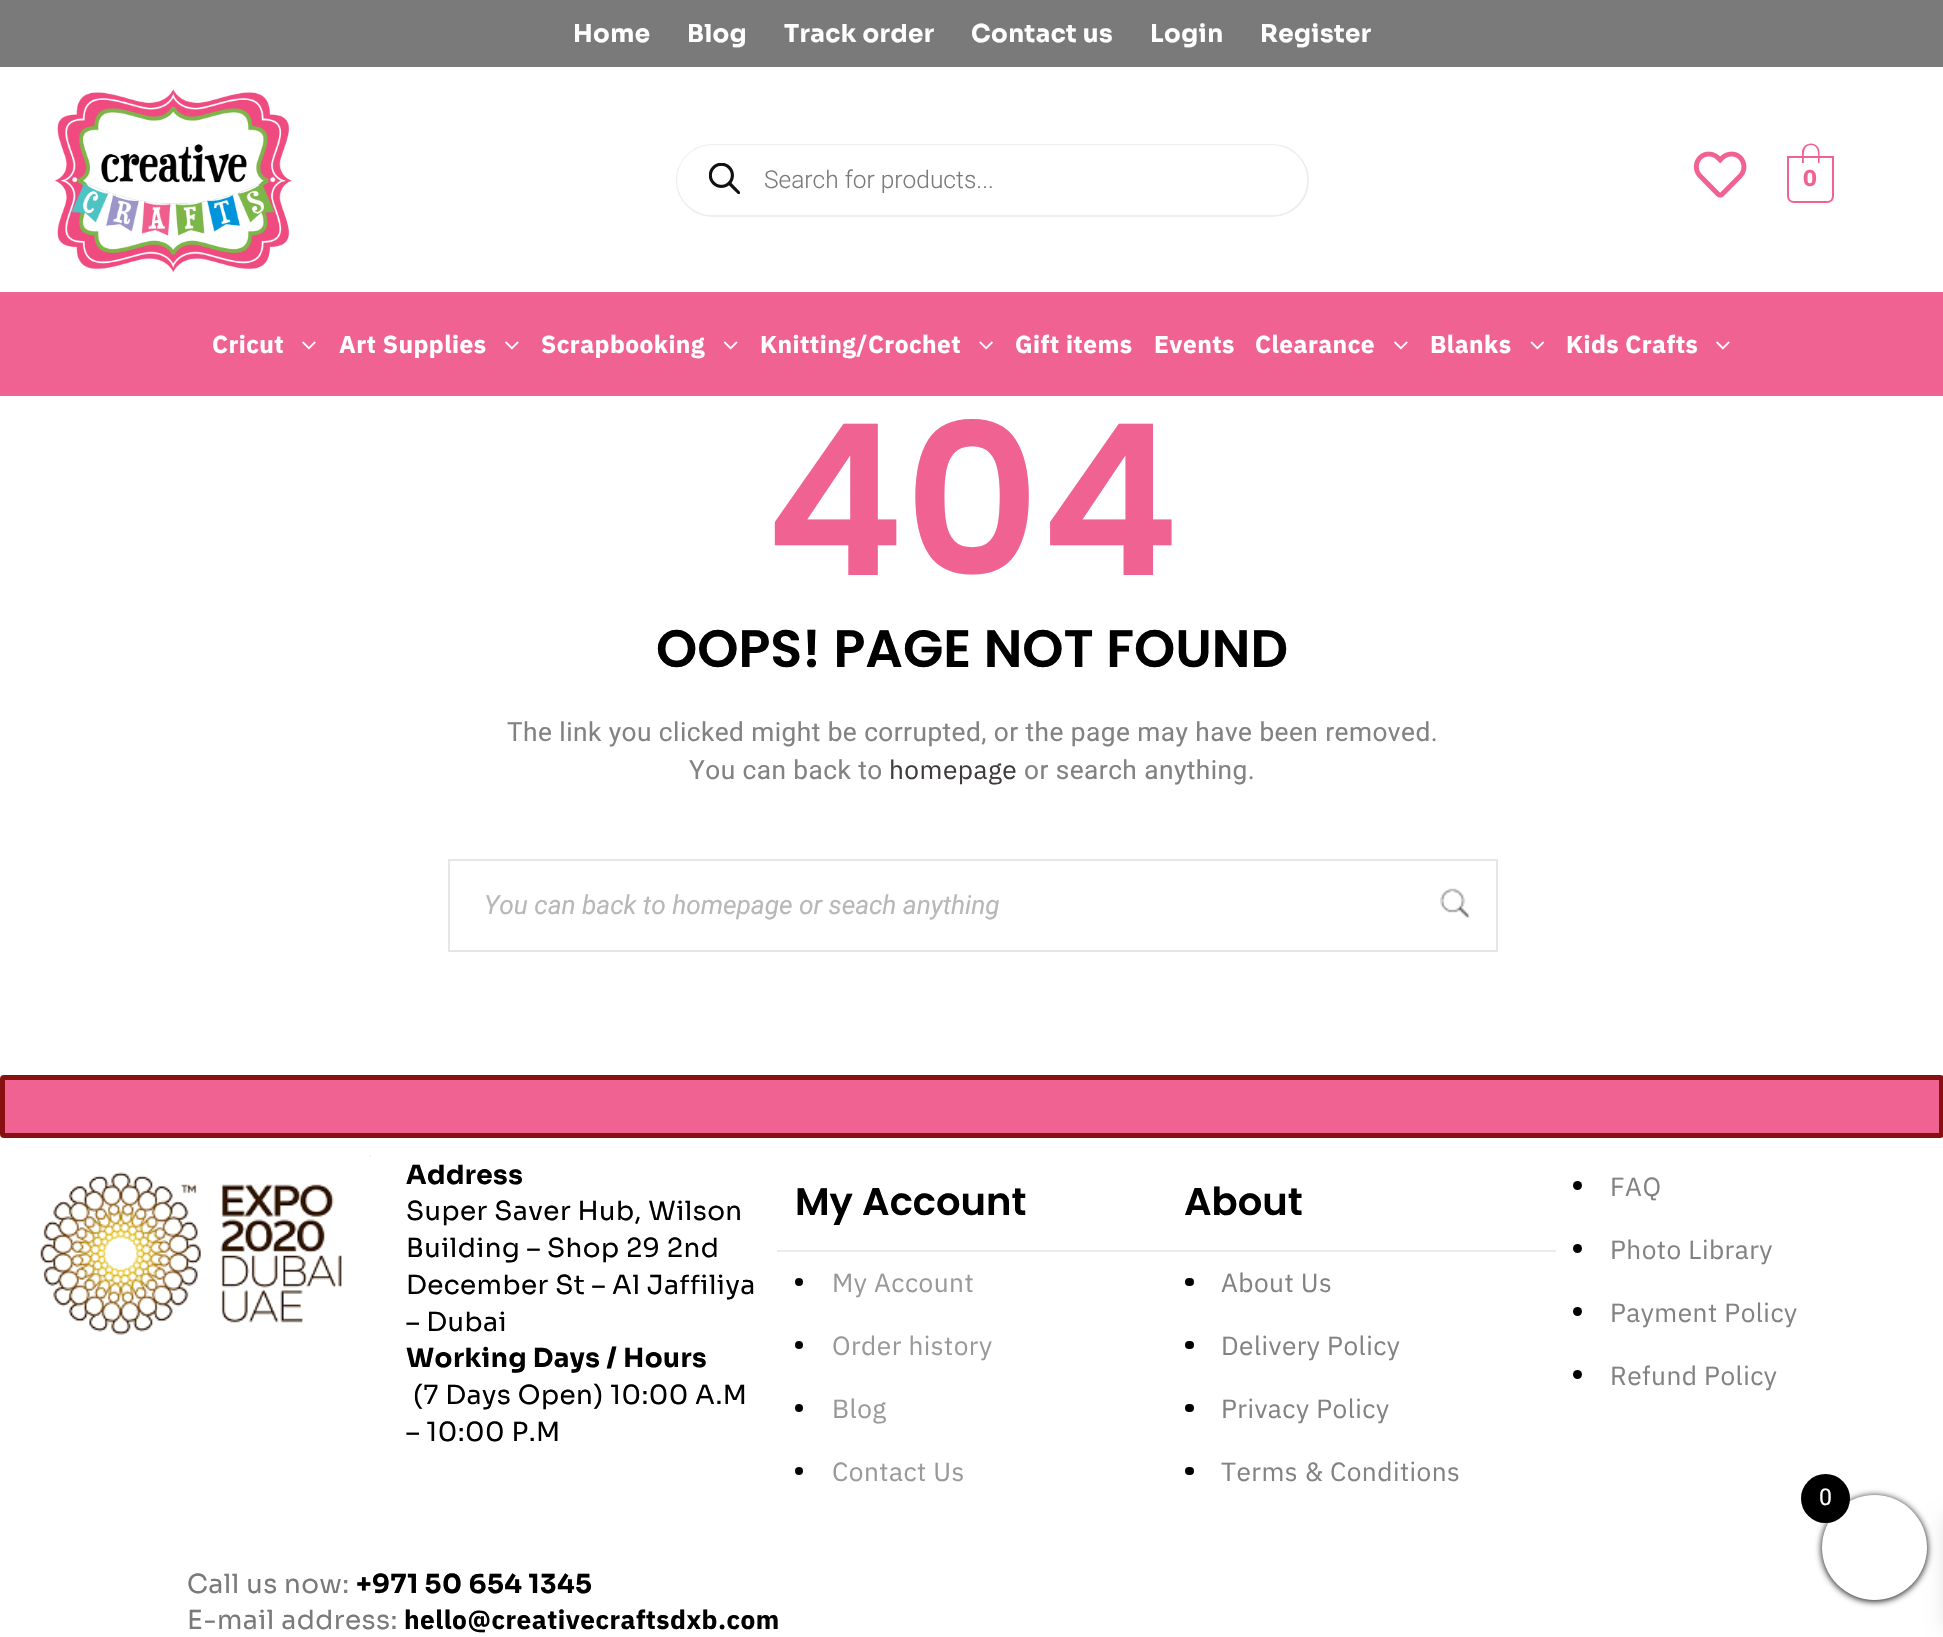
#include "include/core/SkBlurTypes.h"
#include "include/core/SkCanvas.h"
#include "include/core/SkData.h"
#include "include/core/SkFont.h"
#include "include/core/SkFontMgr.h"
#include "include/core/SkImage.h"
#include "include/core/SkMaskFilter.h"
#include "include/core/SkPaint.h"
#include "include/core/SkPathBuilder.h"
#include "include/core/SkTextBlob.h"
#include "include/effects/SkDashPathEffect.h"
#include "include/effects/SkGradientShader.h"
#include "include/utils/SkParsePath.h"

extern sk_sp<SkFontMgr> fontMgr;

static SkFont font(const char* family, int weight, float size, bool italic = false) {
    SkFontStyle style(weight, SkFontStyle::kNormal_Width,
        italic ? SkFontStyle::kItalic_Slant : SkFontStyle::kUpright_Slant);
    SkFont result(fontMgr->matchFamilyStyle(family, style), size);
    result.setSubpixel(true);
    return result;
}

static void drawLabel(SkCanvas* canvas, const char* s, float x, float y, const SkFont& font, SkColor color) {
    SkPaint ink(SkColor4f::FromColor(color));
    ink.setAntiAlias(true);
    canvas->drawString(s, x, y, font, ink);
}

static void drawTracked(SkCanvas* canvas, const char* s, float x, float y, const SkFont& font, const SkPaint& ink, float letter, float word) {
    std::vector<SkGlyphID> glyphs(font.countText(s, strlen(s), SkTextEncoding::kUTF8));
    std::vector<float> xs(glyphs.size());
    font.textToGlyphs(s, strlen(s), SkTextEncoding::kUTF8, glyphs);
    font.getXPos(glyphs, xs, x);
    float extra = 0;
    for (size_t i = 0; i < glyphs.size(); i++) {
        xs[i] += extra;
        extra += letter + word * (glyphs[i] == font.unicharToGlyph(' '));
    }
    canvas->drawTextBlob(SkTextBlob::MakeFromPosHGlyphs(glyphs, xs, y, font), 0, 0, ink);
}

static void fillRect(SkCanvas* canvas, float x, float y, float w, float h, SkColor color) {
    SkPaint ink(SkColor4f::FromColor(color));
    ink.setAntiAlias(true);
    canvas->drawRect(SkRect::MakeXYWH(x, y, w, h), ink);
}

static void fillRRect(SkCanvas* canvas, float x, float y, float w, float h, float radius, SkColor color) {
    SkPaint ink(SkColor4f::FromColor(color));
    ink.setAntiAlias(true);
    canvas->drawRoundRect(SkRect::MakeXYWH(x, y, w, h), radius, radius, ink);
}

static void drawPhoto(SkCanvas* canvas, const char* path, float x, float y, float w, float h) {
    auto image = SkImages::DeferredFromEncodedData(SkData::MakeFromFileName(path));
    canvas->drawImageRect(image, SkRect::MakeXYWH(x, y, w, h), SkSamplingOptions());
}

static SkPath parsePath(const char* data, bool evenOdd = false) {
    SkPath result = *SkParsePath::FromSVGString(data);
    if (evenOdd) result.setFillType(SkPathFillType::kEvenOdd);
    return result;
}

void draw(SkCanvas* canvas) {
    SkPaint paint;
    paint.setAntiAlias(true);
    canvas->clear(0xFFFFFFFF);
    fillRect(canvas, 0, 0, 1943, 67, 0xFF7A7A7A);
    SkFont font1 = font("Sora", 700, 24.5f);
    paint.setColor(0xFFFFFFFF);
    drawTracked(canvas, "Home", 573, 42, font1, paint, 0.45f, 0);
    drawTracked(canvas, "Blog", 687, 42, font1, paint, 0.45f, 0);
    drawTracked(canvas, "Track order", 784, 42, font1, paint, 0.45f, 0);
    drawTracked(canvas, "Contact us", 971, 42, font1, paint, 0.45f, 0);
    drawTracked(canvas, "Login", 1150, 42, font1, paint, 0.45f, 0);
    drawTracked(canvas, "Register", 1260, 42, font1, paint, 0.45f, 0);
    drawPhoto(canvas, "assets/img1.png", 55, 89, 237, 184);
    paint.setStroke(true);
    paint.setStrokeWidth(2);
    paint.setColor(0xFFEEEEEE);
    canvas->drawRoundRect(SkRect::MakeXYWH(677, 145, 631, 71), 35.5f, 35.5f, paint);
    fillRRect(canvas, 677, 145, 630, 70, 35, 0xFFFFFFFF);
    drawPhoto(canvas, "assets/img2.png", 709, 163, 31, 31);
    SkFont font2 = font("Roboto", 300, 24.5f);
    drawLabel(canvas, "Search for products...", 764, 188, font2, 0xFF7A7A7A);
    drawPhoto(canvas, "assets/img3.png", 1693, 151, 54, 47);
    paint.setColor(0xFFF06292);
    canvas->drawPath(parsePath("M1788 157H1833V196C1833 199.5 1830.5 202 1827 202H1794C1790.5 202 1788 199.5 1788 196Z"), paint);
    paint.setStroke(false);
    canvas->drawPath(parsePath("M1811 143.5C1816 143.5 1819.5 147.5 1819.5 152V163H1802V152C1802 147.5 1806 143.5 1811 143.5ZM1811 145C1820 145 1818 157 1818 163H1804C1804 157 1802 145 1811 145Z", true), paint);
    SkFont font3 = font("IBM Plex Sans", 700, 23);
    drawTracked(canvas, "0", 1803, 186, font3, paint, 0.45f, 0);
    fillRect(canvas, 0, 292, 1943, 104, 0xFFF06292);
    SkFont font4 = font("IBM Plex Sans", 700, 24.5f);
    paint.setColor(0xFFFFFFFF);
    drawTracked(canvas, "Cricut", 212, 353, font4, paint, 0.45f, 0);
    drawPhoto(canvas, "assets/img4.png", 302, 341, 14, 9);
    drawTracked(canvas, "Art Supplies", 339, 353, font4, paint, 0.45f, 0);
    drawPhoto(canvas, "assets/img4.png", 505, 341, 14, 9);
    drawTracked(canvas, "Scrapbooking", 541, 353, font4, paint, 0.45f, 0);
    drawPhoto(canvas, "assets/img5.png", 723, 341, 15, 9);
    drawTracked(canvas, "Knitting/Crochet", 760, 353, font4, paint, 0.45f, 0);
    drawPhoto(canvas, "assets/img6.png", 979, 341, 14, 9);
    drawTracked(canvas, "Gift items", 1015, 353, font4, paint, 0.45f, 0);
    drawTracked(canvas, "Events", 1154, 353, font4, paint, 0.45f, 0);
    drawTracked(canvas, "Clearance", 1255, 353, font4, paint, 0.45f, 0);
    drawPhoto(canvas, "assets/img4.png", 1394, 341, 14, 9);
    drawTracked(canvas, "Blanks", 1430, 353, font4, paint, 0.45f, 0);
    drawPhoto(canvas, "assets/img7.png", 1530, 341, 15, 9);
    drawTracked(canvas, "Kids Crafts", 1566, 353, font4, paint, 0.45f, 0);
    drawPhoto(canvas, "assets/img4.png", 1716, 341, 14, 9);
    SkFont font5 = font("Poppins", 600, 210);
    paint.setColor(0xFFF06292);
    drawTracked(canvas, "404", 765, 575, font5, paint, 0.45f, 0);
    SkFont font6 = font("Poppins", 600, 52.5f);
    drawLabel(canvas, "OOPS! PAGE NOT FOUND", 656, 667, font6, 0xFF000000);
    SkFont font7 = font("Roboto", 400, 26.25f);
    paint.setColor(0xFF828282);
    drawTracked(canvas, "The link you clicked might be corrupted, or the page may have been removed.", 507, 741, font7, paint, 0.45f, 0);
    drawTracked(canvas, "You can back to", 689, 779, font7, paint, 0.45f, 0);
    SkFont font8 = font("IBM Plex Sans", 400, 26.25f);
    paint.setColor(0xFF3F3A3B);
    drawTracked(canvas, "homepage", 889, 779, font8, paint, 0.45f, 0);
    paint.setColor(0xFF828282);
    drawTracked(canvas, "or search anything.", 1024, 779, font7, paint, 0.45f, 0);
    paint.setStroke(true);
    paint.setColor(0xFFE6E6E6);
    canvas->drawRect(SkRect::MakeXYWH(449, 860, 1048, 91), paint);
    SkFont font9 = font("Roboto", 400, 26.25f, true);
    drawLabel(canvas, "You can back to homepage or seach anything", 484, 914, font9, 0xFFB8B8B8);
    drawPhoto(canvas, "assets/img8.png", 1440, 888, 30, 30);
    paint.setStroke(false);
    paint.setColor(0xFFF06292);
    canvas->drawRoundRect(SkRect::MakeXYWH(2.5f, 1077.5f, 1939, 58), 1.5f, 1.5f, paint);
    paint.setStroke(true);
    paint.setStrokeWidth(5);
    paint.setColor(0xFF881010);
    canvas->drawRoundRect(SkRect::MakeXYWH(2.5f, 1077.5f, 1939, 58), 1.5f, 1.5f, paint);
    drawPhoto(canvas, "assets/img9.png", 40, 1155, 331, 180);
    SkFont font10 = font("Sora", 700, 26.25f);
    paint.setStroke(false);
    paint.setColor(0xFF000000);
    drawTracked(canvas, "Address", 406, 1184, font10, paint, 0.45f, 0);
    SkFont font11 = font("Sora", 400, 26.25f);
    drawTracked(canvas, "Super Saver Hub, Wilson", 406, 1220, font11, paint, 0.45f, 0);
    drawTracked(canvas, "Building – Shop 29 2nd", 406, 1257, font11, paint, 0.45f, 0);
    drawTracked(canvas, "December St – Al Jaffiliya", 406, 1294, font11, paint, 0.45f, 0);
    drawTracked(canvas, "– Dubai", 406, 1331, font11, paint, 0.45f, 0);
    drawTracked(canvas, "Working Days / Hours", 406, 1367, font10, paint, 0.45f, 0);
    drawTracked(canvas, "(7 Days Open) 10:00 A.M", 413, 1404, font11, paint, 0.45f, 0);
    drawTracked(canvas, "– 10:00 P.M", 406, 1441, font11, paint, 0.45f, 0);
    SkFont font12 = font("Poppins", 600, 38.5f);
    drawLabel(canvas, "My Account", 795, 1215, font12, 0xFF000000);
    fillRect(canvas, 777, 1250, 779, 2, 0xFFEBEBEB);
    paint.setColor(0xFF030303);
    canvas->drawCircle(799, 1282, 4, paint);
    paint.setColor(0xFF999999);
    drawTracked(canvas, "My Account", 832, 1292, font8, paint, 0.45f, 0);
    paint.setColor(0xFF030303);
    canvas->drawCircle(799, 1345, 4, paint);
    paint.setColor(0xFF999999);
    drawTracked(canvas, "Order history", 832, 1355, font8, paint, 0.45f, 0);
    paint.setColor(0xFF030303);
    canvas->drawCircle(799, 1408, 4, paint);
    paint.setColor(0xFF999999);
    drawTracked(canvas, "Blog", 832, 1418, font8, paint, 0.45f, 0);
    paint.setColor(0xFF030303);
    canvas->drawCircle(799, 1471, 4, paint);
    paint.setColor(0xFF999999);
    drawTracked(canvas, "Contact Us", 832, 1481, font8, paint, 0.45f, 0);
    drawLabel(canvas, "About", 1184, 1215, font12, 0xFF000000);
    fillRRect(canvas, 1185, 1278, 9, 8, 4, 0xFF000000);
    paint.setColor(0xFF828282);
    drawTracked(canvas, "About Us", 1221, 1292, font8, paint, 0.45f, 0);
    fillRRect(canvas, 1185, 1341, 9, 8, 4, 0xFF000000);
    drawTracked(canvas, "Delivery Policy", 1221, 1355, font8, paint, 0.45f, 0);
    fillRRect(canvas, 1185, 1404, 9, 8, 4, 0xFF000000);
    drawTracked(canvas, "Privacy Policy", 1221, 1418, font8, paint, 0.45f, 0);
    fillRRect(canvas, 1185, 1467, 9, 8, 4, 0xFF000000);
    drawTracked(canvas, "Terms & Conditions", 1221, 1481, font8, paint, 0.45f, 0);
    paint.setColor(0xFF000000);
    canvas->drawCircle(1577.5f, 1185.5f, 4.5f, paint);
    paint.setColor(0xFF828282);
    drawTracked(canvas, "FAQ", 1610, 1196, font8, paint, 0.45f, 0);
    paint.setColor(0xFF000000);
    canvas->drawCircle(1577.5f, 1248.5f, 4.5f, paint);
    paint.setColor(0xFF828282);
    drawTracked(canvas, "Photo Library", 1610, 1259, font8, paint, 0.45f, 0);
    paint.setColor(0xFF000000);
    canvas->drawCircle(1577.5f, 1311.5f, 4.5f, paint);
    paint.setColor(0xFF828282);
    drawTracked(canvas, "Payment Policy", 1610, 1322, font8, paint, 0.45f, 0);
    paint.setColor(0xFF000000);
    canvas->drawCircle(1577.5f, 1374.5f, 4.5f, paint);
    paint.setColor(0xFF828282);
    drawTracked(canvas, "Refund Policy", 1610, 1385, font8, paint, 0.45f, 0);
    paint.setColor(0xFF7A7A7A);
    drawTracked(canvas, "Call us now:", 187, 1593, font11, paint, 0.45f, 0);
    paint.setColor(0xFF000000);
    drawTracked(canvas, "+971 50 654 1345", 356, 1593, font10, paint, 0.45f, 0);
    paint.setColor(0xFF7A7A7A);
    drawTracked(canvas, "E-mail address:", 187, 1629, font11, paint, 0.45f, 0);
    SkFont font13 = font("IBM Plex Sans", 700, 26.25f);
    paint.setColor(0xFF000000);
    drawTracked(canvas, "hello@creativecraftsdxb.com", 404, 1629, font13, paint, 0.45f, 0);
    paint.setMaskFilter(SkMaskFilter::MakeBlur(kNormal_SkBlurStyle, 3.5f));
    canvas->drawRoundRect(SkRect::MakeXYWH(1822, 1496, 105, 105), 52.5f, 52.5f, paint);
    paint.setMaskFilter(nullptr);
    paint.setColor(0x1A000000);
    paint.setMaskFilter(SkMaskFilter::MakeBlur(kNormal_SkBlurStyle, 9));
    canvas->drawRect(SkRect::MakeXYWH(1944, 1516, 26, 113), paint);
    paint.setMaskFilter(nullptr);
    paint.setColor(0xFFFFFFFF);
    canvas->drawCircle(1874.5f, 1547.5f, 52.5f, paint);
    paint.setColor(0xFF000000);
    canvas->drawCircle(1825.5f, 1498.5f, 24.5f, paint);
    SkFont font14 = font("Roboto", 400, 23);
    paint.setColor(0xFFFFFFFF);
    drawTracked(canvas, "0", 1819, 1505, font14, paint, 0.45f, 0);
}
